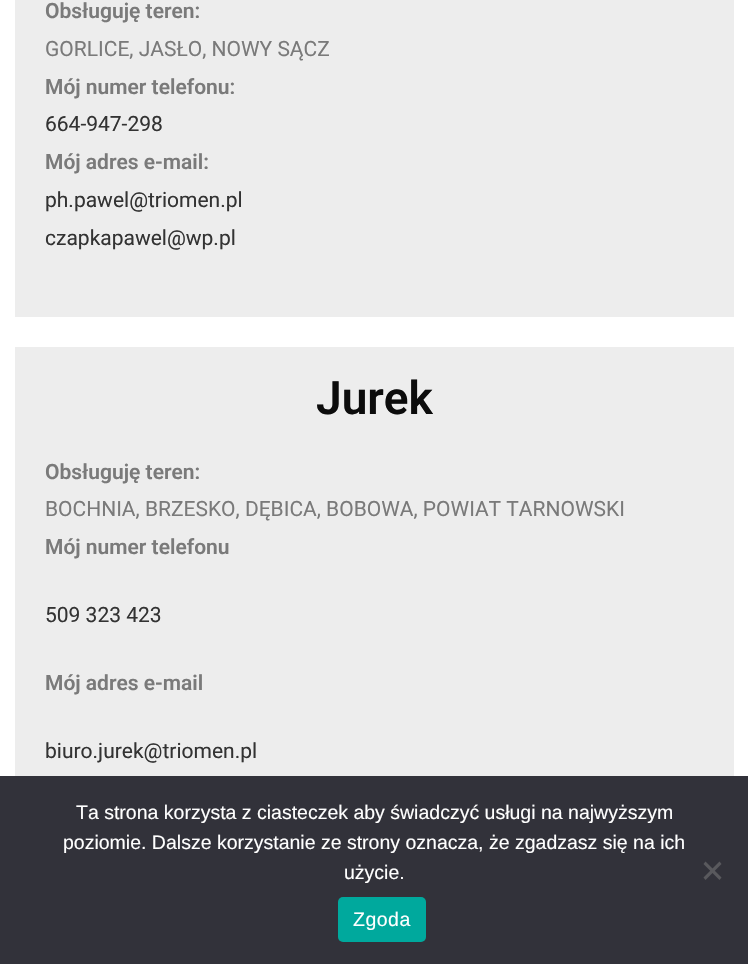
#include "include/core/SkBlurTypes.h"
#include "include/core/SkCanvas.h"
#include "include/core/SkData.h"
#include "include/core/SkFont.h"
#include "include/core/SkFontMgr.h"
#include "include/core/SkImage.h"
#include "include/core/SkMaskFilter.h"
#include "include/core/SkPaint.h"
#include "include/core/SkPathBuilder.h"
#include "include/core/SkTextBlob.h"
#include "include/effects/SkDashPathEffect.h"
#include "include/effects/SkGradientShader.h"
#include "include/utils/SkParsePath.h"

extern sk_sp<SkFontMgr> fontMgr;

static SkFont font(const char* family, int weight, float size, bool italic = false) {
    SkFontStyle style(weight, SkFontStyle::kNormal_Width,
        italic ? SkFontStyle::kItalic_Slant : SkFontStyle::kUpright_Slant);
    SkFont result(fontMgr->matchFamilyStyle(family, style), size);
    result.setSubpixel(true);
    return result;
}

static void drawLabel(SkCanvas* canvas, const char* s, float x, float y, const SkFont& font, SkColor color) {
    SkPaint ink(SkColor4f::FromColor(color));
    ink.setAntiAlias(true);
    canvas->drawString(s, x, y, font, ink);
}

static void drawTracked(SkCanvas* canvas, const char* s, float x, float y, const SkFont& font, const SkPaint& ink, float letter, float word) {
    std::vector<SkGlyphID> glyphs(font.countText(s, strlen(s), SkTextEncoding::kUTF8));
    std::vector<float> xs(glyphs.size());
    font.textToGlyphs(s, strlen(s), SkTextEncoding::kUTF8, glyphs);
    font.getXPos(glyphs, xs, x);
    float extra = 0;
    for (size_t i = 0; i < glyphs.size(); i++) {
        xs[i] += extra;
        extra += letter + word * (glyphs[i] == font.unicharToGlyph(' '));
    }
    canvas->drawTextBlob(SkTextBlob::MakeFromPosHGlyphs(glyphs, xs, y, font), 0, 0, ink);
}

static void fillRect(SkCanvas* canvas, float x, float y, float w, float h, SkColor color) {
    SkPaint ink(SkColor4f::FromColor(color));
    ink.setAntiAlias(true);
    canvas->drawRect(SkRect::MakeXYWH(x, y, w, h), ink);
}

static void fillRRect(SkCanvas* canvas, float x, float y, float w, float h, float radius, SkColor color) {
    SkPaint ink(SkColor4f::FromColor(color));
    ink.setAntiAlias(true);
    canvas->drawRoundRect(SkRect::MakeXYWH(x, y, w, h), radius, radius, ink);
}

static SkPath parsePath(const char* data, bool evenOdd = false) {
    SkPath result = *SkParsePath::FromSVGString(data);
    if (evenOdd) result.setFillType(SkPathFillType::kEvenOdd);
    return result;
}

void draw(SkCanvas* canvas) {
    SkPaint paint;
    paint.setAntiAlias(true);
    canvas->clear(0xFFFFFFFF);
    fillRect(canvas, 15, 0, 719, 317, 0xFFEDEDED);
    SkFont font1 = font("Roboto", 600, 21);
    drawLabel(canvas, "Obsługuję teren:", 45, 18, font1, 0xFF7A7A7A);
    SkFont font2 = font("Roboto", 400, 21);
    drawLabel(canvas, "GORLICE, JASŁO, NOWY SĄCZ", 45, 56, font2, 0xFF7A7A7A);
    drawLabel(canvas, "Mój numer telefonu:", 45, 94, font1, 0xFF7A7A7A);
    drawLabel(canvas, "664-947-298", 45, 131, font2, 0xFF333333);
    drawLabel(canvas, "Mój adres e-mail:", 45, 169, font1, 0xFF7A7A7A);
    drawLabel(canvas, "ph.pawel@triomen.pl", 45, 207, font2, 0xFF333333);
    drawLabel(canvas, "czapkapawel@wp.pl", 45, 245, font2, 0xFF333333);
    fillRect(canvas, 15, 347, 719, 429, 0xFFEDEDED);
    SkFont font3 = font("Roboto", 600, 46);
    drawLabel(canvas, "Jurek", 316, 414, font3, 0xFF0C0C0C);
    drawLabel(canvas, "Obsługuję teren:", 45, 479, font1, 0xFF7A7A7A);
    drawLabel(canvas, "BOCHNIA, BRZESKO, DĘBICA, BOBOWA, POWIAT TARNOWSKI", 45, 516, font2, 0xFF7A7A7A);
    drawLabel(canvas, "Mój numer telefonu", 45, 554, font1, 0xFF7A7A7A);
    drawLabel(canvas, "509 323 423", 45, 622, font2, 0xFF333333);
    drawLabel(canvas, "Mój adres e-mail", 45, 690, font1, 0xFF7A7A7A);
    drawLabel(canvas, "biuro.jurek@triomen.pl", 45, 758, font2, 0xFF333333);
    fillRect(canvas, 0, 776, 748, 188, 0xFF32323A);
    SkFont font4 = font("Liberation Sans", 400, 19.5f);
    drawLabel(canvas, "Ta strona korzysta z ciasteczek aby świadczyć usługi na najwyższym", 76, 819, font4, 0xFFFFFFFF);
    drawLabel(canvas, "poziomie. Dalsze korzystanie ze strony oznacza, że zgadzasz się na ich", 63, 849, font4, 0xFFFFFFFF);
    drawLabel(canvas, "użycie.", 344, 879, font4, 0xFFFFFFFF);
    paint.setColor(0xFF59595D);
    canvas->drawPath(parsePath("M719.5 861.5L721.5 864L705.5 880L703.5 877.5Z"), paint);
    canvas->drawPath(parsePath("M703.5 864L705.5 861.5L721.5 877.5L719.5 880Z"), paint);
    fillRRect(canvas, 338, 897, 88, 45, 5, 0xFF00A99D);
    paint.setColor(0xFFFFFFFF);
    drawTracked(canvas, "Zgoda", 353, 926, font4, paint, 0.5f, 0);
}
